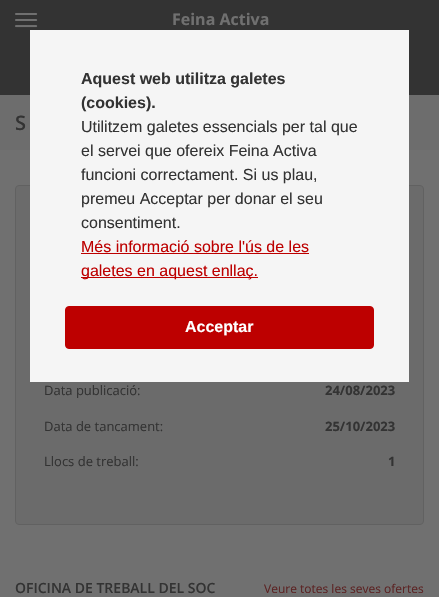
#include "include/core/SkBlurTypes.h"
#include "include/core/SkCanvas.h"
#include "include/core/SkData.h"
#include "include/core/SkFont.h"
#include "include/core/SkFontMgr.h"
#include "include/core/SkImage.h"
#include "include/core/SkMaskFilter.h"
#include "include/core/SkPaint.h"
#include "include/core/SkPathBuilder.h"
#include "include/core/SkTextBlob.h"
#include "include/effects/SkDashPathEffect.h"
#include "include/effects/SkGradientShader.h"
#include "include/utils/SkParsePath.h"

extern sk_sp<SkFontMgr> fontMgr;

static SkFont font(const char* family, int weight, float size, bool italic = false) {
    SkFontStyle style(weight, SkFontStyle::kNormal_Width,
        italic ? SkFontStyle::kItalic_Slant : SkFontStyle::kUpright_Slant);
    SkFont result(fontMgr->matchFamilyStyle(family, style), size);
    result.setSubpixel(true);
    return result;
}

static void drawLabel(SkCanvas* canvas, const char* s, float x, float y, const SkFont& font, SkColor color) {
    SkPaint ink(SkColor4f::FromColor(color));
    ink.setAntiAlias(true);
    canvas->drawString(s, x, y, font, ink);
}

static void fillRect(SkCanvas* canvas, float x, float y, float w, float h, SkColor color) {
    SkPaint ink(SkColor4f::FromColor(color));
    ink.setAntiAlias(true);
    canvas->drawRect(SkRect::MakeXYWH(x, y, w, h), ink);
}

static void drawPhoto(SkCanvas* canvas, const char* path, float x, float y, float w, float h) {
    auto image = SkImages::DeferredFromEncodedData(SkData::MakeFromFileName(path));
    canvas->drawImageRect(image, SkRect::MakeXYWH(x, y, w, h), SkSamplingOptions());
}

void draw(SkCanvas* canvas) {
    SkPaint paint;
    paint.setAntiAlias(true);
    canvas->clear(0xFF707070);
    fillRect(canvas, 0, 0, 439, 95, 0xFF333333);
    drawPhoto(canvas, "assets/img1.png", 15, 13, 23, 15);
    SkFont font1 = font("Open Sans", 700, 16);
    drawLabel(canvas, "Feina Activa", 172, 25, font1, 0xFF707070);
    fillRect(canvas, 0, 95, 439, 55, 0xFF6D6D6D);
    SkFont font2 = font("Open Sans", 600, 20);
    drawLabel(canvas, "S", 15, 130, font2, 0xFF333333);
    paint.setColor(0xFF6B6B6B);
    canvas->drawRoundRect(SkRect::MakeXYWH(15.5f, 185.5f, 408, 339), 3.5f, 3.5f, paint);
    paint.setStroke(true);
    paint.setStrokeWidth(1);
    paint.setColor(0xFF616161);
    canvas->drawRoundRect(SkRect::MakeXYWH(15.5f, 185.5f, 408, 339), 3.5f, 3.5f, paint);
    SkFont font3 = font("Open Sans", 400, 13);
    drawLabel(canvas, "Data publicació:", 44, 395, font3, 0xFF333333);
    SkFont font4 = font("Open Sans", 700, 13);
    drawLabel(canvas, "24/08/2023", 325, 395, font4, 0xFF333333);
    drawLabel(canvas, "Data de tancament:", 44, 431, font3, 0xFF333333);
    drawLabel(canvas, "25/10/2023", 325, 431, font4, 0xFF333333);
    drawLabel(canvas, "Llocs de treball:", 44, 466, font3, 0xFF333333);
    drawLabel(canvas, "1", 388, 466, font4, 0xFF333333);
    SkFont font5 = font("Open Sans", 600, 14);
    drawLabel(canvas, "OFICINA DE TREBALL DEL SOC", 15, 593, font5, 0xFF333333);
    SkFont font6 = font("Open Sans", 400, 12);
    drawLabel(canvas, "Veure totes les seves ofertes", 264, 593, font6, 0xFF5C2424);
    fillRect(canvas, 30, 30, 379, 352, 0xFFF5F5F5);
    SkFont font7 = font("Liberation Sans", 700, 16);
    drawLabel(canvas, "Aquest web utilitza galetes", 81, 84, font7, 0xFF333333);
    drawLabel(canvas, "(cookies).", 81, 108, font7, 0xFF333333);
    SkFont font8 = font("Liberation Sans", 400, 16);
    drawLabel(canvas, "Utilitzem galetes essencials per tal que", 81, 132, font8, 0xFF333333);
    drawLabel(canvas, "el servei que ofereix Feina Activa", 81, 156, font8, 0xFF333333);
    drawLabel(canvas, "funcioni correctament. Si us plau,", 81, 180, font8, 0xFF333333);
    drawLabel(canvas, "premeu Acceptar per donar el seu", 81, 204, font8, 0xFF333333);
    drawLabel(canvas, "consentiment.", 81, 228, font8, 0xFF333333);
    drawLabel(canvas, "Més informació sobre l'ús de les", 81, 252, font8, 0xFFBD0000);
    fillRect(canvas, 81, 253, 228, 1, 0xFFBD0000);
    fillRect(canvas, 81, 277, 177, 1, 0xFFBD0000);
    drawLabel(canvas, "galetes en aquest enllaç.", 81, 276, font8, 0xFFBD0000);
    paint.setStroke(false);
    paint.setColor(0xFFBD0000);
    canvas->drawRoundRect(SkRect::MakeXYWH(65.5f, 306.5f, 308, 42), 3.5f, 3.5f, paint);
    paint.setStroke(true);
    canvas->drawRoundRect(SkRect::MakeXYWH(65.5f, 306.5f, 308, 42), 3.5f, 3.5f, paint);
    drawLabel(canvas, "Acceptar", 185, 332, font7, 0xFFFFFFFF);
}
